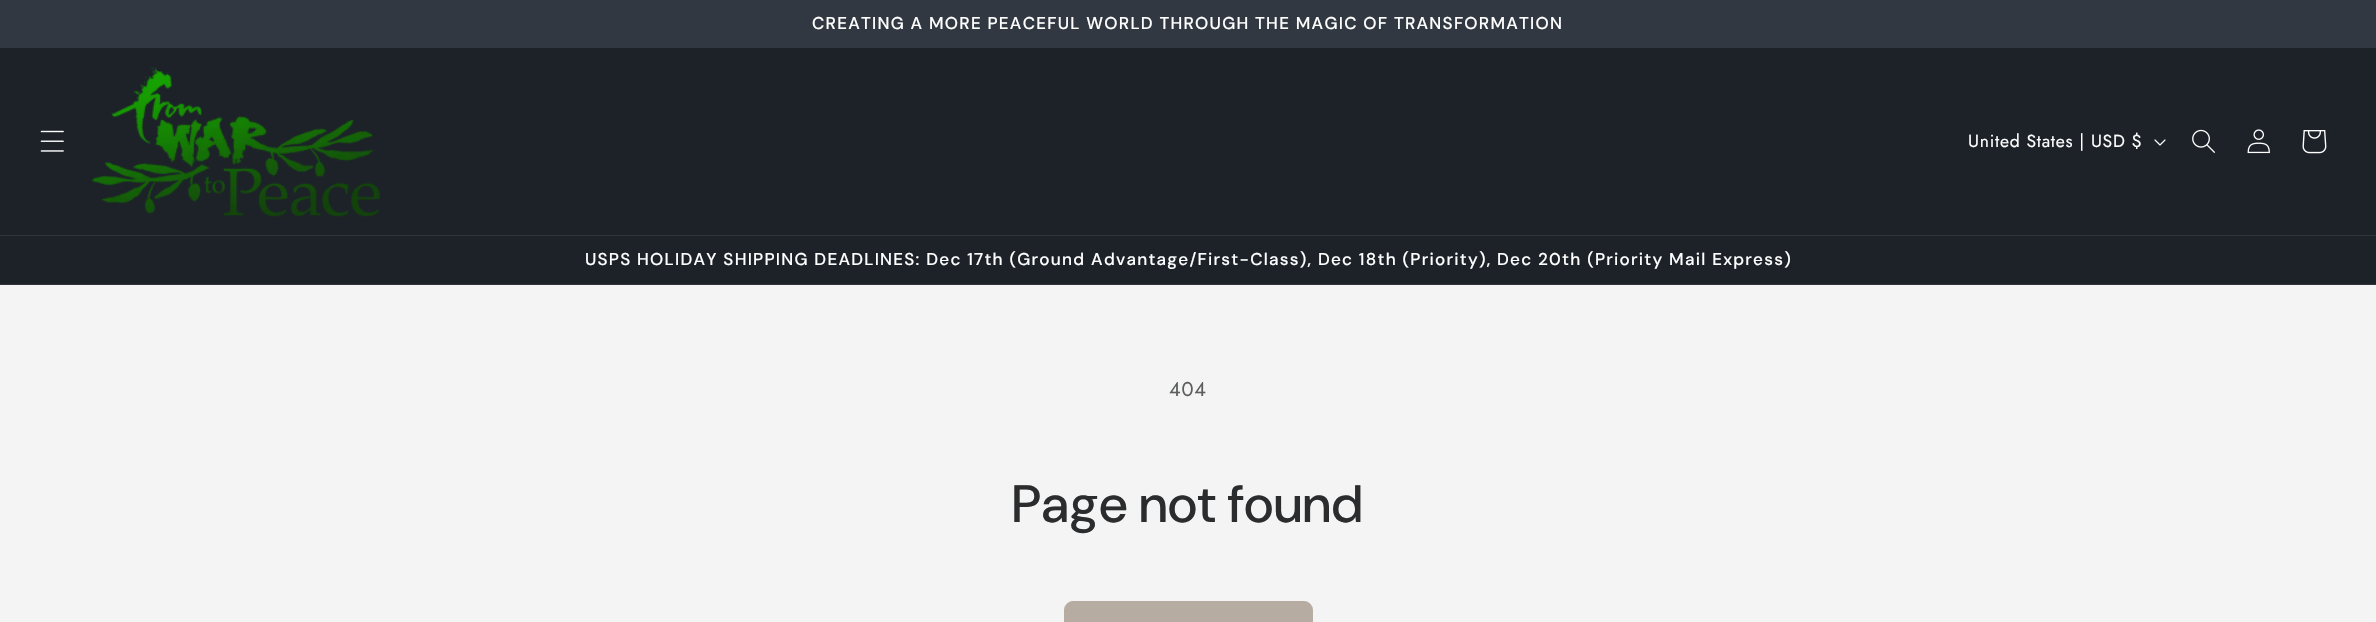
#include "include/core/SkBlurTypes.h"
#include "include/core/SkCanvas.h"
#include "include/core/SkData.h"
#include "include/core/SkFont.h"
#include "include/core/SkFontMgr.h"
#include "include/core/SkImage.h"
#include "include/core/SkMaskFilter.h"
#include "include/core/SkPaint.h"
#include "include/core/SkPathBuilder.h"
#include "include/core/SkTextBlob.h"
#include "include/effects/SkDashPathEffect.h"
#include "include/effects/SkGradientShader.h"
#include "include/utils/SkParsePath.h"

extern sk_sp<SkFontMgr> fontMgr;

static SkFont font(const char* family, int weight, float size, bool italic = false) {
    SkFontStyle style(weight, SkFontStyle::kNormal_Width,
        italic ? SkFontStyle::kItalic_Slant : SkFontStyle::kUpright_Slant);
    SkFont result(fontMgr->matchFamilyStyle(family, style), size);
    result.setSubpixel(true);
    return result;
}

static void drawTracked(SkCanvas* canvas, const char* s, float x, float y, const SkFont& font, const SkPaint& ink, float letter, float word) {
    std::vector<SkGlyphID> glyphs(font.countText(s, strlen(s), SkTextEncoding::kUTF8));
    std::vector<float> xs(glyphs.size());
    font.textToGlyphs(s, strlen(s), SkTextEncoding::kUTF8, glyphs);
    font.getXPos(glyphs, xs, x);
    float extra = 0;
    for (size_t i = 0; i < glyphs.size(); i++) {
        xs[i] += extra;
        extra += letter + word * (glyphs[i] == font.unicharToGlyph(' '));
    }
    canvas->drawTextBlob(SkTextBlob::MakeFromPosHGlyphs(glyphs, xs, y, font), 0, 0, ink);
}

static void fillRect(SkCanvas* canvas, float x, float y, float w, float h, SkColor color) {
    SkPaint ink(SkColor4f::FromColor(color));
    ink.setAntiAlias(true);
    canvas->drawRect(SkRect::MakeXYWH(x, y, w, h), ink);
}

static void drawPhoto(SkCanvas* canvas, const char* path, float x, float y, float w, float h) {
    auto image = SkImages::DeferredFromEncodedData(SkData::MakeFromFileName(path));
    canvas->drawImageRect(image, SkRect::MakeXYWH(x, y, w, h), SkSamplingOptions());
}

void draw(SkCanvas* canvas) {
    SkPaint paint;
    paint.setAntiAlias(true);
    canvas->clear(0xFFF4F4F4);
    fillRect(canvas, 0, 0, 2376, 48, 0xFF323841);
    SkFont font1 = font("DM Sans", 500, 17.05f);
    paint.setColor(0xFFFFFFFF);
    drawTracked(canvas, "CREATING A MORE PEACEFUL WORLD THROUGH THE MAGIC OF TRANSFORMATION", 812, 29, font1, paint, 1.25f, 0);
    fillRect(canvas, 0, 48, 2376, 187, 0xFF1C2228);
    fillRect(canvas, 0, 235, 2376, 1, 0xFF2E3439);
    drawPhoto(canvas, "assets/img1.png", 40, 130, 24, 22);
    drawPhoto(canvas, "assets/img2.png", 92, 67, 288, 150);
    SkFont font2 = font("Jost", 400, 17.5f);
    drawTracked(canvas, "United States | USD $", 1968, 147, font2, paint, 0.75f, 0);
    drawPhoto(canvas, "assets/img3.png", 2154, 139, 12, 7);
    drawPhoto(canvas, "assets/img4.png", 2192, 129, 23, 24);
    drawPhoto(canvas, "assets/img5.png", 2247, 129, 23, 25);
    drawPhoto(canvas, "assets/img6.png", 2302, 130, 25, 24);
    fillRect(canvas, 0, 236, 2376, 48, 0xFF1C2228);
    fillRect(canvas, 0, 284, 2376, 1, 0xFF2E3439);
    drawTracked(canvas, "USPS HOLIDAY SHIPPING DEADLINES: Dec 17th (Ground Advantage/First-Class), Dec 18th (Priority), Dec 20th (Priority Mail Express)", 585, 265, font1, paint, 1.25f, 0);
    SkFont font3 = font("Jost", 400, 20);
    paint.setColor(0xFF5D5E5F);
    drawTracked(canvas, "404", 1169, 396, font3, paint, 0.75f, 0);
    SkFont font4 = font("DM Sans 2", 500, 52.5f);
    paint.setColor(0xFF2B2C2D);
    drawTracked(canvas, "Page not found", 1012, 522, font4, paint, 0.75f, 0);
    paint.setColor(0xFFB7ACA2);
    canvas->drawRoundRect(SkRect::MakeXYWH(1064.5f, 601.5f, 248, 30), 8.5f, 8.5f, paint);
    paint.setStroke(true);
    paint.setStrokeWidth(1);
    canvas->drawRoundRect(SkRect::MakeXYWH(1064.5f, 601.5f, 248, 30), 8.5f, 8.5f, paint);
}
